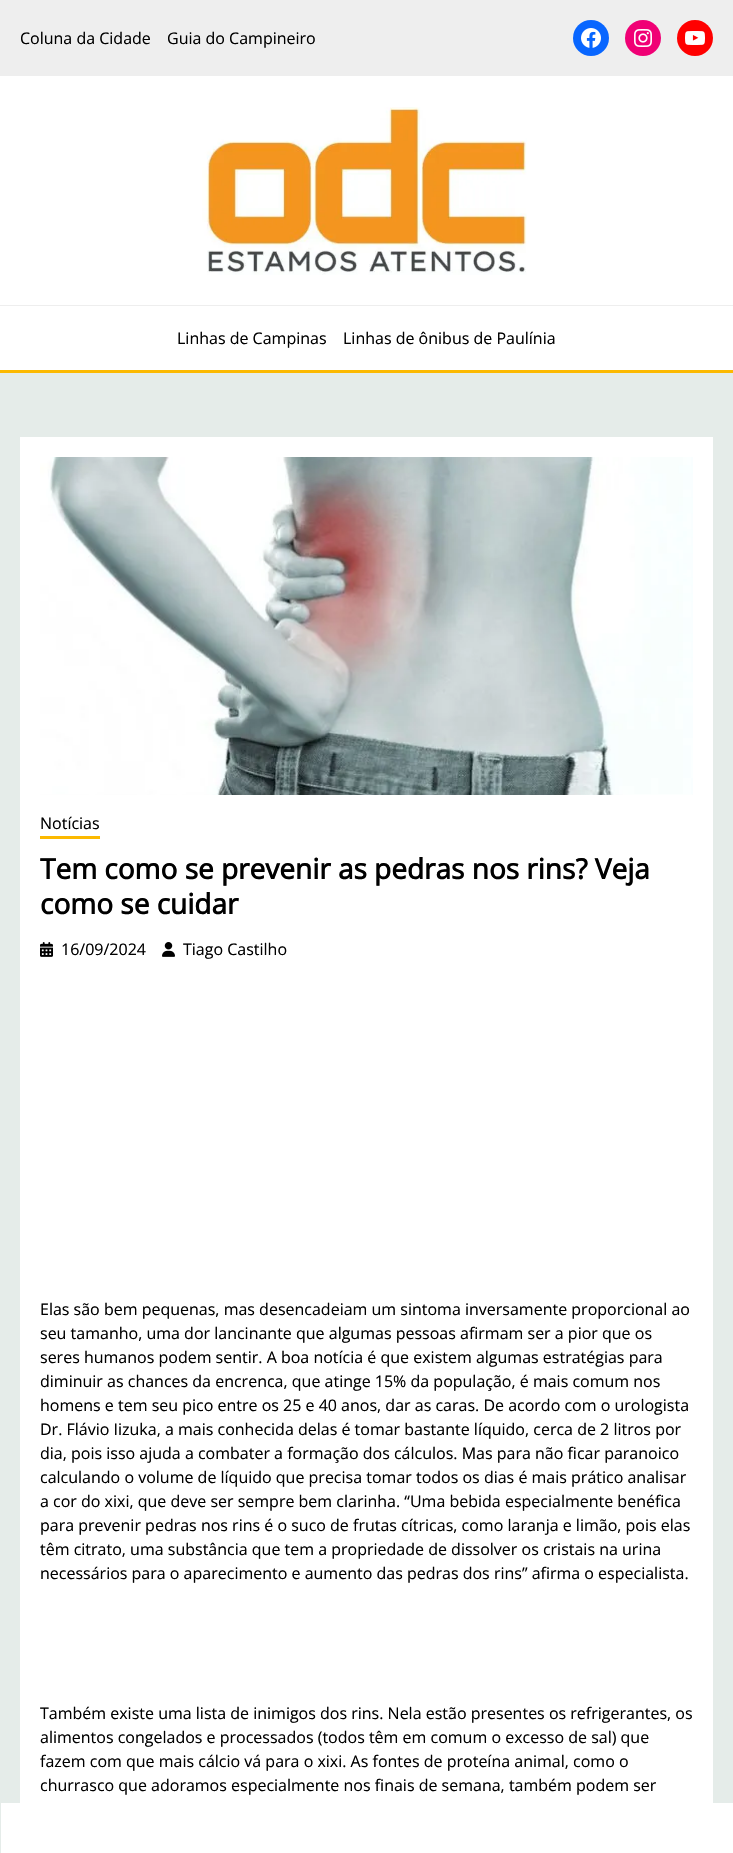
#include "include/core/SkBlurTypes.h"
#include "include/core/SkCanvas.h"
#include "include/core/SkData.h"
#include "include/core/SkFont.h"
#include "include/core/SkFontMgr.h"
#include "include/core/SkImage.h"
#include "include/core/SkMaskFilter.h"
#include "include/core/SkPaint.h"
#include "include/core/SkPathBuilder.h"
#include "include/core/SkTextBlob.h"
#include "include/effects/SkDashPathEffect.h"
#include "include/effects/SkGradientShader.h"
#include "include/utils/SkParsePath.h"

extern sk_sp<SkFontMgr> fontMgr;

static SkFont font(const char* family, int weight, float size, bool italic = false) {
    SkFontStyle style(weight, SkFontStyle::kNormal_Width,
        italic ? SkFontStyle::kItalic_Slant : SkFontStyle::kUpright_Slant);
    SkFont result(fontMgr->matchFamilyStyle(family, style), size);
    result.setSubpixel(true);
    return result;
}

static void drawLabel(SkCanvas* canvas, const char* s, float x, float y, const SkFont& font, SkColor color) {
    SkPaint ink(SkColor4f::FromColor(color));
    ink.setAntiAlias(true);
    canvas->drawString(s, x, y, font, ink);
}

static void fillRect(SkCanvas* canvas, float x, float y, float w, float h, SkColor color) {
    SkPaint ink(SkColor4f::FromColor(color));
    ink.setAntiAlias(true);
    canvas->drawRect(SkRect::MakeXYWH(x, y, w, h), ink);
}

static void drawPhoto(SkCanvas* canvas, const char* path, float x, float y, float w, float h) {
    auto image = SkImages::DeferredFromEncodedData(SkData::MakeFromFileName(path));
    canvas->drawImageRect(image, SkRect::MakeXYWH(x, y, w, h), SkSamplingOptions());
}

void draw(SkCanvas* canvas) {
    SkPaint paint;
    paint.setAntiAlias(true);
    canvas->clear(0xFFFFFFFF);
    fillRect(canvas, 0, 0, 733, 76, 0xFFEEEEEE);
    SkFont font1 = font("Open Sans", 400, 16);
    drawLabel(canvas, "Coluna da Cidade", 20, 44, font1, 0xFF000000);
    drawLabel(canvas, "Guia do Campineiro", 167, 44, font1, 0xFF000000);
    paint.setColor(0xFF0866FF);
    canvas->drawCircle(591, 38, 18, paint);
    drawPhoto(canvas, "assets/img1.png", 581, 28, 20, 20);
    paint.setColor(0xFFF00075);
    canvas->drawCircle(643, 38, 18, paint);
    drawPhoto(canvas, "assets/img2.png", 634, 29, 18, 18);
    paint.setColor(0xFFFF0000);
    canvas->drawCircle(695, 38, 18, paint);
    drawPhoto(canvas, "assets/img3.png", 685, 31, 20, 14);
    fillRect(canvas, 0, 305, 733, 1, 0xFFEEEEEE);
    drawPhoto(canvas, "assets/img4.png", 202, 107, 325, 168);
    fillRect(canvas, 0, 370, 733, 3, 0xFFFCB900);
    drawLabel(canvas, "Linhas de Campinas", 177, 344, font1, 0xFF000000);
    drawLabel(canvas, "Linhas de ônibus de Paulínia", 343, 344, font1, 0xFF000000);
    fillRect(canvas, 0, 373, 733, 1480, 0xFFE5ECE9);
    fillRect(canvas, 20, 437, 693, 1366, 0xFFFFFFFF);
    drawPhoto(canvas, "assets/img5.png", 40, 457, 653, 338);
    drawLabel(canvas, "Notícias", 40, 829, font1, 0xFF000000);
    fillRect(canvas, 40, 836, 60, 3, 0xFFFCB900);
    SkFont font2 = font("Open Sans", 700, 28);
    drawLabel(canvas, "Tem como se prevenir as pedras nos rins? Veja", 40, 879, font2, 0xFF000000);
    drawLabel(canvas, "como se cuidar", 40, 914, font2, 0xFF000000);
    drawPhoto(canvas, "assets/img6.png", 40, 942, 13, 15);
    drawLabel(canvas, "16/09/2024", 61, 955, font1, 0xFF000000);
    drawPhoto(canvas, "assets/img7.png", 162, 942, 13, 15);
    drawLabel(canvas, "Tiago Castilho", 183, 955, font1, 0xFF000000);
    drawLabel(canvas, "Elas são bem pequenas, mas desencadeiam um sintoma inversamente proporcional ao", 40, 1315, font1, 0xFF000000);
    drawLabel(canvas, "seu tamanho, uma dor lancinante que algumas pessoas afirmam ser a pior que os", 40, 1339, font1, 0xFF000000);
    drawLabel(canvas, "seres humanos podem sentir. A boa notícia é que existem algumas estratégias para", 40, 1363, font1, 0xFF000000);
    drawLabel(canvas, "diminuir as chances da encrenca, que atinge 15% da população, é mais comum nos", 40, 1387, font1, 0xFF000000);
    drawLabel(canvas, "homens e tem seu pico entre os 25 e 40 anos, dar as caras. De acordo com o urologista", 40, 1411, font1, 0xFF000000);
    drawLabel(canvas, "Dr. Flávio Iizuka, a mais conhecida delas é tomar bastante líquido, cerca de 2 litros por", 40, 1435, font1, 0xFF000000);
    drawLabel(canvas, "dia, pois isso ajuda a combater a formação dos cálculos. Mas para não ficar paranoico", 40, 1459, font1, 0xFF000000);
    drawLabel(canvas, "calculando o volume de líquido que precisa tomar todos os dias é mais prático analisar", 40, 1483, font1, 0xFF000000);
    drawLabel(canvas, "a cor do xixi, que deve ser sempre bem clarinha. “Uma bebida especialmente benéfica", 40, 1507, font1, 0xFF000000);
    drawLabel(canvas, "para prevenir pedras nos rins é o suco de frutas cítricas, como laranja e limão, pois elas", 40, 1531, font1, 0xFF000000);
    drawLabel(canvas, "têm citrato, uma substância que tem a propriedade de dissolver os cristais na urina", 40, 1555, font1, 0xFF000000);
    drawLabel(canvas, "necessários para o aparecimento e aumento das pedras dos rins” afirma o especialista.", 40, 1579, font1, 0xFF000000);
    drawLabel(canvas, "Também existe uma lista de inimigos dos rins. Nela estão presentes os refrigerantes, os", 40, 1719, font1, 0xFF000000);
    drawLabel(canvas, "alimentos congelados e processados (todos têm em comum o excesso de sal) que", 40, 1743, font1, 0xFF000000);
    drawLabel(canvas, "fazem com que mais cálcio vá para o xixi. As fontes de proteína animal, como o", 40, 1767, font1, 0xFF000000);
    drawLabel(canvas, "churrasco que adoramos especialmente nos finais de semana, também podem ser", 40, 1791, font1, 0xFF000000);
    fillRect(canvas, 1, 1803, 732, 50, 0xFFFFFFFF);
}
